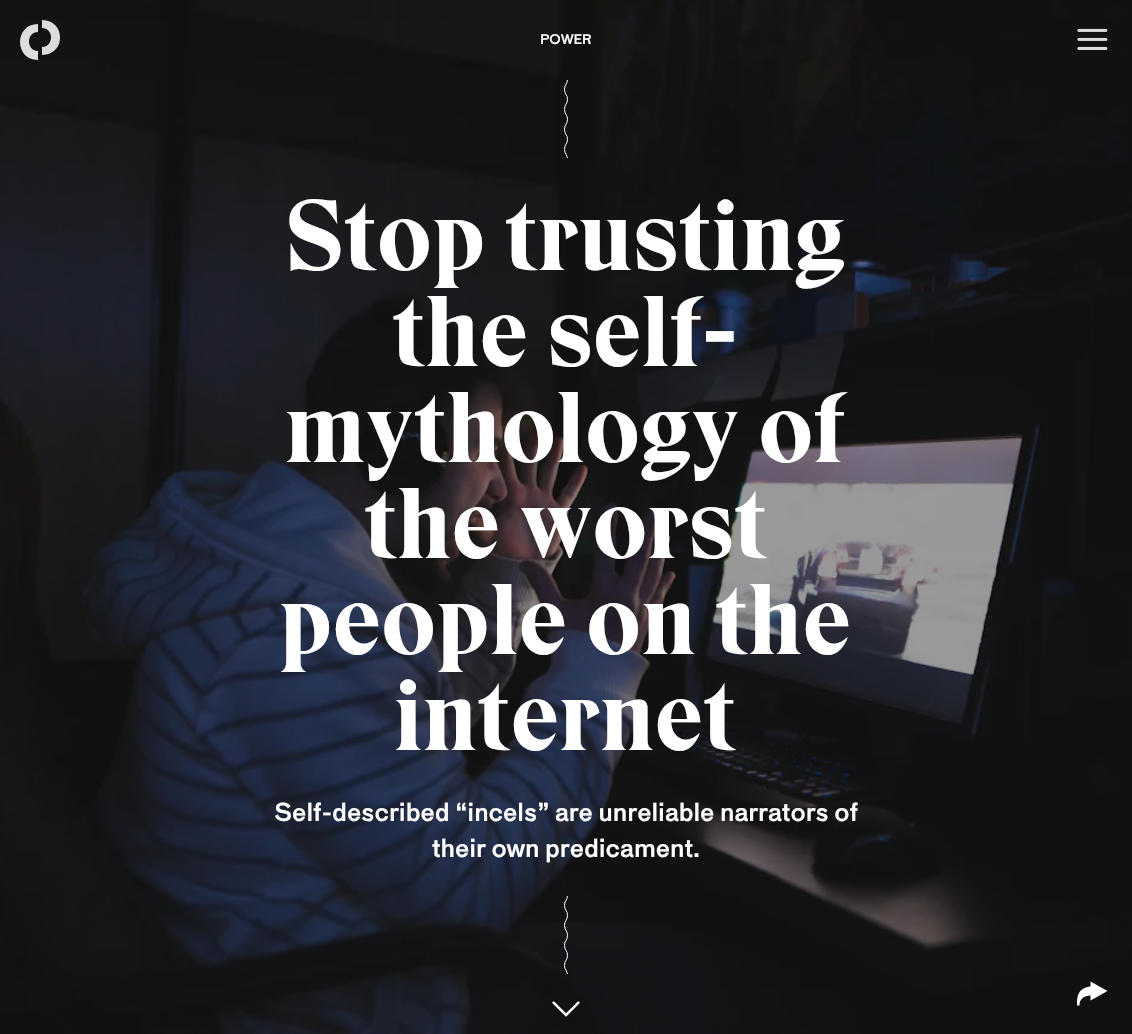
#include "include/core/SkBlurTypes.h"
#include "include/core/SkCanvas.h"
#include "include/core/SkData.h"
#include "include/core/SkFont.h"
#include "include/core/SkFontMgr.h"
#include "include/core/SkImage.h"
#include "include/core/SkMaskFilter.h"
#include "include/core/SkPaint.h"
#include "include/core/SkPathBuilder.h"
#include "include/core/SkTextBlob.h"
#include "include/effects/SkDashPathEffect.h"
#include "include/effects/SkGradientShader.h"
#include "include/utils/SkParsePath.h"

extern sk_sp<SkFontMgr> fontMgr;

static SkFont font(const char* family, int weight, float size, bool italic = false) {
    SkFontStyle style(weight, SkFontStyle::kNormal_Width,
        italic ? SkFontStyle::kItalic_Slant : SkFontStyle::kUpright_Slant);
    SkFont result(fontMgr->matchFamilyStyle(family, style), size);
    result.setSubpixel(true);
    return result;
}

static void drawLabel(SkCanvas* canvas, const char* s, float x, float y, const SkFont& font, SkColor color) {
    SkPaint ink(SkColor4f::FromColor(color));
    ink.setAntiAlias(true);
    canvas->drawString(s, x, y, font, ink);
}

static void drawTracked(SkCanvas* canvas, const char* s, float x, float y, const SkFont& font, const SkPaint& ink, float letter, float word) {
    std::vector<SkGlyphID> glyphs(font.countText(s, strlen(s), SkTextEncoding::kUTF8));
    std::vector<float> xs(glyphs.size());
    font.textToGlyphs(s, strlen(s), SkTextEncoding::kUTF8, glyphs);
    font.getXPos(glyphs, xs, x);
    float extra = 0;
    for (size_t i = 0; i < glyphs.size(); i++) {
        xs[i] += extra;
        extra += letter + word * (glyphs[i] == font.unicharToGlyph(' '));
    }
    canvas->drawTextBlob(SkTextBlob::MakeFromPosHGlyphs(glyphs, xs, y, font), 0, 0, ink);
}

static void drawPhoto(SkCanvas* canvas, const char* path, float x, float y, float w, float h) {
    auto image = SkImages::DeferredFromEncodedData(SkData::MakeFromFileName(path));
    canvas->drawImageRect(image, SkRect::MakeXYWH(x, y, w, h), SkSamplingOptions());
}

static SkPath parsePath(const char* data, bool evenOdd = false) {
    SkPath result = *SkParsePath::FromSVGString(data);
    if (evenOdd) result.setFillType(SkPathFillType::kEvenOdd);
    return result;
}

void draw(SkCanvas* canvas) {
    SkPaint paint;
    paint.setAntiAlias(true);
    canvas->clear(0xFFFFFFFF);
    drawPhoto(canvas, "assets/img2.png", 0, 0, 1132, 1034);
    paint.setColor(0xFFDDDDDD);
    canvas->drawPath(parsePath("M42 55V47C54 47 54 28 42 28V20C66 20 66 55 42 55ZM38 60C14 60 14 24 38 24V32C26 32 26 51 38 51Z"), paint);
    drawPhoto(canvas, "assets/img1.png", 1077, 28, 31, 22);
    SkFont font1 = font("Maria", 400, 14);
    drawLabel(canvas, "POWER", 540, 44, font1, 0xFFFFFFFF);
    drawPhoto(canvas, "assets/img3.png", 564, 80, 4, 78);
    SkFont font2 = font("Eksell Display", 500, 100);
    paint.setColor(0xFFFFFFFF);
    drawTracked(canvas, "Stop trusting", 286, 270, font2, paint, 2, 0);
    drawTracked(canvas, "the self-", 393, 366, font2, paint, 2, 0);
    drawTracked(canvas, "mythology of", 286, 462, font2, paint, 2, 0);
    drawTracked(canvas, "the worst", 365, 558, font2, paint, 2, 0);
    drawTracked(canvas, "people on the", 280, 654, font2, paint, 2, 0);
    drawTracked(canvas, "internet", 395, 750, font2, paint, 2, 0);
    SkFont font3 = font("Maria", 400, 26);
    drawLabel(canvas, "Self-described “incels” are unreliable narrators of", 274, 821, font3, 0xFFFFFFFF);
    drawLabel(canvas, "their own predicament.", 432, 857, font3, 0xFFFFFFFF);
    drawPhoto(canvas, "assets/img4.png", 564, 896, 4, 78);
    drawPhoto(canvas, "assets/img5.png", 552, 1001, 28, 16);
    canvas->drawPath(parsePath("M1090.5 1000.5L1107.5 991L1090.5 981.5V986.5C1078.5 988 1077 995 1077 1005.5H1079.5C1079.5 998.5 1084 996 1090.5 995.5Z"), paint);
}
